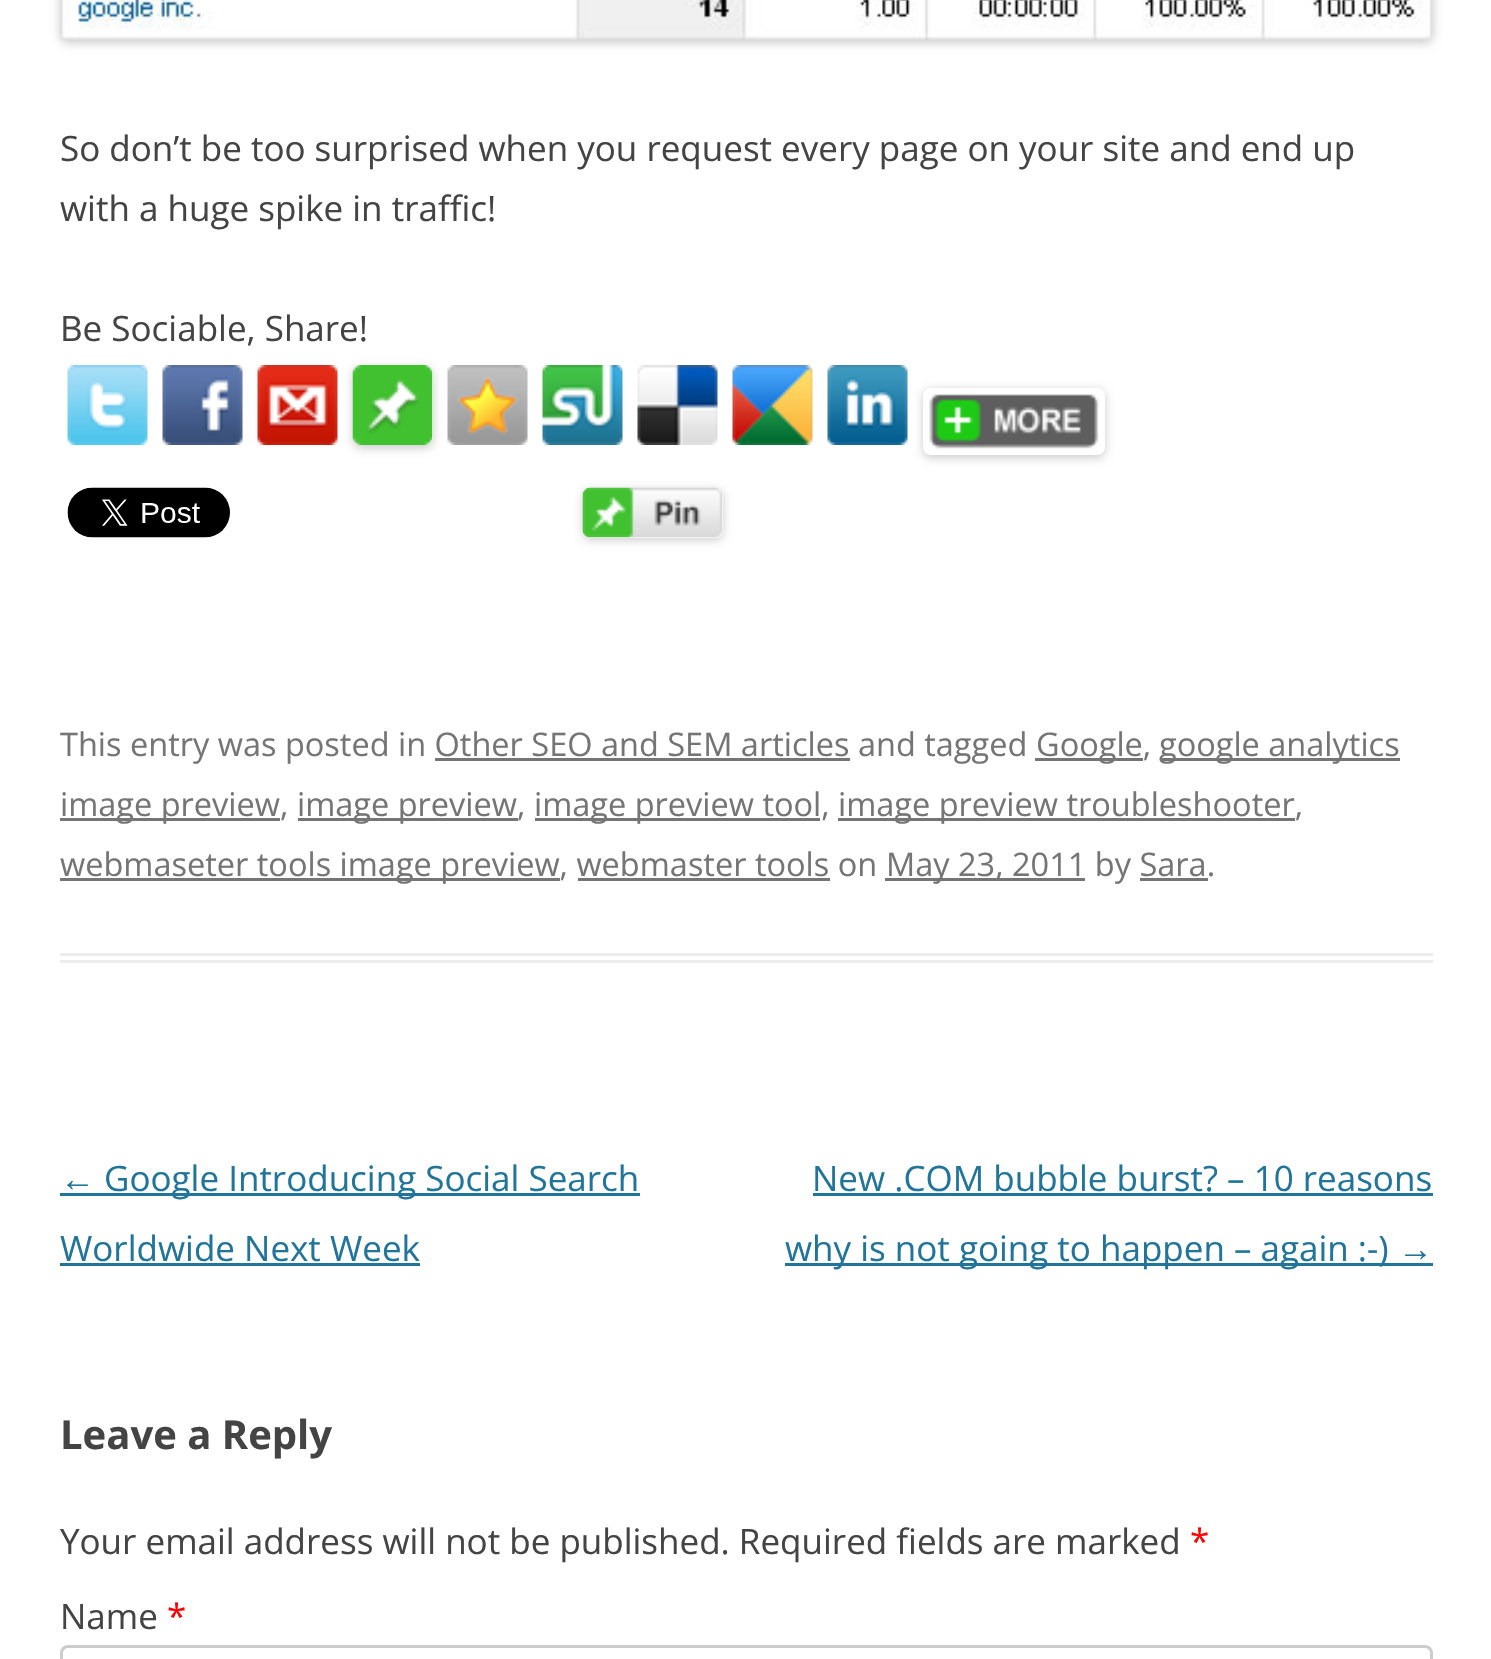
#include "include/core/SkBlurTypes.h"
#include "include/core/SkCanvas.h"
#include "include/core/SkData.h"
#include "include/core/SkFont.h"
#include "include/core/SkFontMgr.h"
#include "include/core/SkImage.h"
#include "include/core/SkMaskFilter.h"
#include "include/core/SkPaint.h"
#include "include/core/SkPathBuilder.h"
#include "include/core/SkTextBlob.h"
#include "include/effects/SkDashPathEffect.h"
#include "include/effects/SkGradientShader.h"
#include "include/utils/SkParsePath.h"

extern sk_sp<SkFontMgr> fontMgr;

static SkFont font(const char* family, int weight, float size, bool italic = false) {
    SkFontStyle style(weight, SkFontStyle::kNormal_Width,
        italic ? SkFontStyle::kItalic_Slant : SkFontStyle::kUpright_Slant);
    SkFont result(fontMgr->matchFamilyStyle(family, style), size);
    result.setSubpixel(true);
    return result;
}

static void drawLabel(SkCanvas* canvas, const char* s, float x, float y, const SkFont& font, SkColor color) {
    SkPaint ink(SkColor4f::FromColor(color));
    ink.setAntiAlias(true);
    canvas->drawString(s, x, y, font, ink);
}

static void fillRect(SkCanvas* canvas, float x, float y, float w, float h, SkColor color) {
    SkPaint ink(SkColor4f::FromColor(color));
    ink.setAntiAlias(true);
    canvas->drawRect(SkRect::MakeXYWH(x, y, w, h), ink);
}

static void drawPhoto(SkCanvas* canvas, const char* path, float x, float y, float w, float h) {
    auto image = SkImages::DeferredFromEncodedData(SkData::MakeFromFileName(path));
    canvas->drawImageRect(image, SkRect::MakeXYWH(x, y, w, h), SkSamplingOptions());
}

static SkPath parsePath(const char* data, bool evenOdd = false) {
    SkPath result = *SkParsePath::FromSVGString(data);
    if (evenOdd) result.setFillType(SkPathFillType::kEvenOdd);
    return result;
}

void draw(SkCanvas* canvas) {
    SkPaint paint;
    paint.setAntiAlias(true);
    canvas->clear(0xFFFFFFFF);
    fillRect(canvas, 60, 953, 1373, 3, 0xFFEDEDED);
    fillRect(canvas, 60, 960, 1373, 3, 0xFFEDEDED);
    paint.setColor(0x33000000);
    paint.setMaskFilter(SkMaskFilter::MakeBlur(kNormal_SkBlurStyle, 5));
    canvas->drawRoundRect(SkRect::MakeXYWH(60, -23, 1373, 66), 8, 8, paint);
    paint.setMaskFilter(nullptr);
    drawPhoto(canvas, "assets/img1.png", 60, 0, 1373, 40);
    SkFont font1 = font("Open Sans", 400, 35);
    drawLabel(canvas, "So don’t be too surprised when you request every page on your site and end up", 60, 161, font1, 0xFF444444);
    drawLabel(canvas, "with a huge spike in traffic!", 60, 221, font1, 0xFF444444);
    drawLabel(canvas, "Be Sociable, Share!", 60, 341, font1, 0xFF444444);
    drawPhoto(canvas, "assets/img2.png", 67, 365, 81, 80);
    drawPhoto(canvas, "assets/img3.png", 162, 365, 81, 80);
    drawPhoto(canvas, "assets/img4.png", 257, 365, 81, 80);
    canvas->save();
    canvas->clipPath(parsePath("M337 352H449V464H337ZM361 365H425C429.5 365 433 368.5 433 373V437C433 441.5 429.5 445 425 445H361C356.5 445 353 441.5 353 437V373C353 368.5 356.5 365 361 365Z", true), true);
    paint.setMaskFilter(SkMaskFilter::MakeBlur(kNormal_SkBlurStyle, 5));
    canvas->drawRoundRect(SkRect::MakeXYWH(353, 368, 80, 80), 8, 8, paint);
    paint.setMaskFilter(nullptr);
    canvas->restore();
    drawPhoto(canvas, "assets/img5.png", 352, 365, 81, 80);
    drawPhoto(canvas, "assets/img6.png", 447, 365, 81, 80);
    drawPhoto(canvas, "assets/img7.png", 542, 365, 81, 80);
    drawPhoto(canvas, "assets/img8.png", 637, 365, 81, 80);
    drawPhoto(canvas, "assets/img9.png", 732, 365, 81, 80);
    drawPhoto(canvas, "assets/img10.png", 827, 365, 81, 80);
    canvas->save();
    canvas->clipPath(parsePath("M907 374H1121V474H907ZM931 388H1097C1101.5 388 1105 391.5 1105 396V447C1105 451.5 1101.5 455 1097 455H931C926.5 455 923 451.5 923 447V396C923 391.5 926.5 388 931 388Z", true), true);
    paint.setMaskFilter(SkMaskFilter::MakeBlur(kNormal_SkBlurStyle, 5));
    canvas->drawRoundRect(SkRect::MakeXYWH(923, 390, 182, 68), 8, 8, paint);
    paint.setMaskFilter(nullptr);
    canvas->restore();
    drawPhoto(canvas, "assets/img11.png", 929, 394, 170, 55);
    drawPhoto(canvas, "assets/img12.png", 67, 487, 163, 51);
    canvas->save();
    canvas->clipPath(parsePath("M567 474H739V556H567ZM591 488H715C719.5 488 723 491.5 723 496V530C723 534.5 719.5 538 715 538H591C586.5 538 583 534.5 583 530V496C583 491.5 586.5 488 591 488Z", true), true);
    paint.setMaskFilter(SkMaskFilter::MakeBlur(kNormal_SkBlurStyle, 5));
    canvas->drawRoundRect(SkRect::MakeXYWH(583, 490, 140, 50), 8, 8, paint);
    paint.setMaskFilter(nullptr);
    canvas->restore();
    drawPhoto(canvas, "assets/img13.png", 582, 487, 141, 51);
    SkFont font2 = font("Open Sans", 400, 32.5f);
    drawLabel(canvas, "This entry was posted in Other SEO and SEM articles and tagged", 60, 756, font2, 0xFF757575);
    fillRect(canvas, 1035, 758, 108, 3, 0xFF757575);
    drawLabel(canvas, "Google,", 1036, 756, font2, 0xFF757575);
    fillRect(canvas, 1160, 758, 240, 3, 0xFF757575);
    drawLabel(canvas, "google analytics", 1159, 756, font2, 0xFF757575);
    fillRect(canvas, 435, 758, 415, 3, 0xFF757575);
    fillRect(canvas, 60, 818, 220, 3, 0xFF757575);
    drawLabel(canvas, "image preview,", 60, 816, font2, 0xFF757575);
    fillRect(canvas, 298, 818, 220, 3, 0xFF757575);
    drawLabel(canvas, "image preview,", 297, 816, font2, 0xFF757575);
    fillRect(canvas, 535, 818, 285, 3, 0xFF757575);
    drawLabel(canvas, "image preview tool,", 534, 816, font2, 0xFF757575);
    fillRect(canvas, 838, 818, 457, 3, 0xFF757575);
    drawLabel(canvas, "image preview troubleshooter,", 838, 816, font2, 0xFF757575);
    fillRect(canvas, 60, 878, 500, 3, 0xFF757575);
    drawLabel(canvas, "webmaseter tools image preview, webmaster tools on", 60, 876, font2, 0xFF757575);
    fillRect(canvas, 885, 878, 200, 3, 0xFF757575);
    drawLabel(canvas, "May 23, 2011 by Sara.", 886, 876, font2, 0xFF757575);
    fillRect(canvas, 578, 878, 252, 3, 0xFF757575);
    fillRect(canvas, 1140, 878, 68, 3, 0xFF757575);
    SkFont font3 = font("Liberation Sans", 400, 35);
    drawLabel(canvas, "←", 60, 1191, font3, 0xFF21759B);
    fillRect(canvas, 60, 1193, 580, 3, 0xFF21759B);
    drawLabel(canvas, "Google Introducing Social Search", 104, 1191, font1, 0xFF21759B);
    drawLabel(canvas, "Worldwide Next Week", 60, 1261, font1, 0xFF21759B);
    fillRect(canvas, 60, 1263, 360, 3, 0xFF21759B);
    drawLabel(canvas, "New .COM bubble burst? – 10 reasons", 812, 1191, font1, 0xFF21759B);
    fillRect(canvas, 813, 1193, 620, 3, 0xFF21759B);
    fillRect(canvas, 785, 1263, 648, 3, 0xFF21759B);
    drawLabel(canvas, "why is not going to happen – again :-)", 785, 1261, font1, 0xFF21759B);
    drawLabel(canvas, "→", 1398, 1261, font3, 0xFF21759B);
    SkFont font4 = font("Open Sans", 700, 40);
    drawLabel(canvas, "Leave a Reply", 60, 1449, font4, 0xFF444444);
    drawLabel(canvas, "Your email address will not be published. Required fields are marked", 60, 1554, font1, 0xFF444444);
    drawLabel(canvas, "*", 1190, 1554, font1, 0xFFFF0000);
    drawLabel(canvas, "Name", 60, 1629, font1, 0xFF444444);
    drawLabel(canvas, "*", 167, 1629, font1, 0xFFFF0000);
    paint.setStroke(true);
    paint.setStrokeWidth(3);
    paint.setColor(0xFFCCCCCC);
    canvas->drawRoundRect(SkRect::MakeXYWH(61.5f, 1646.5f, 1370, 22), 6.5f, 6.5f, paint);
}
